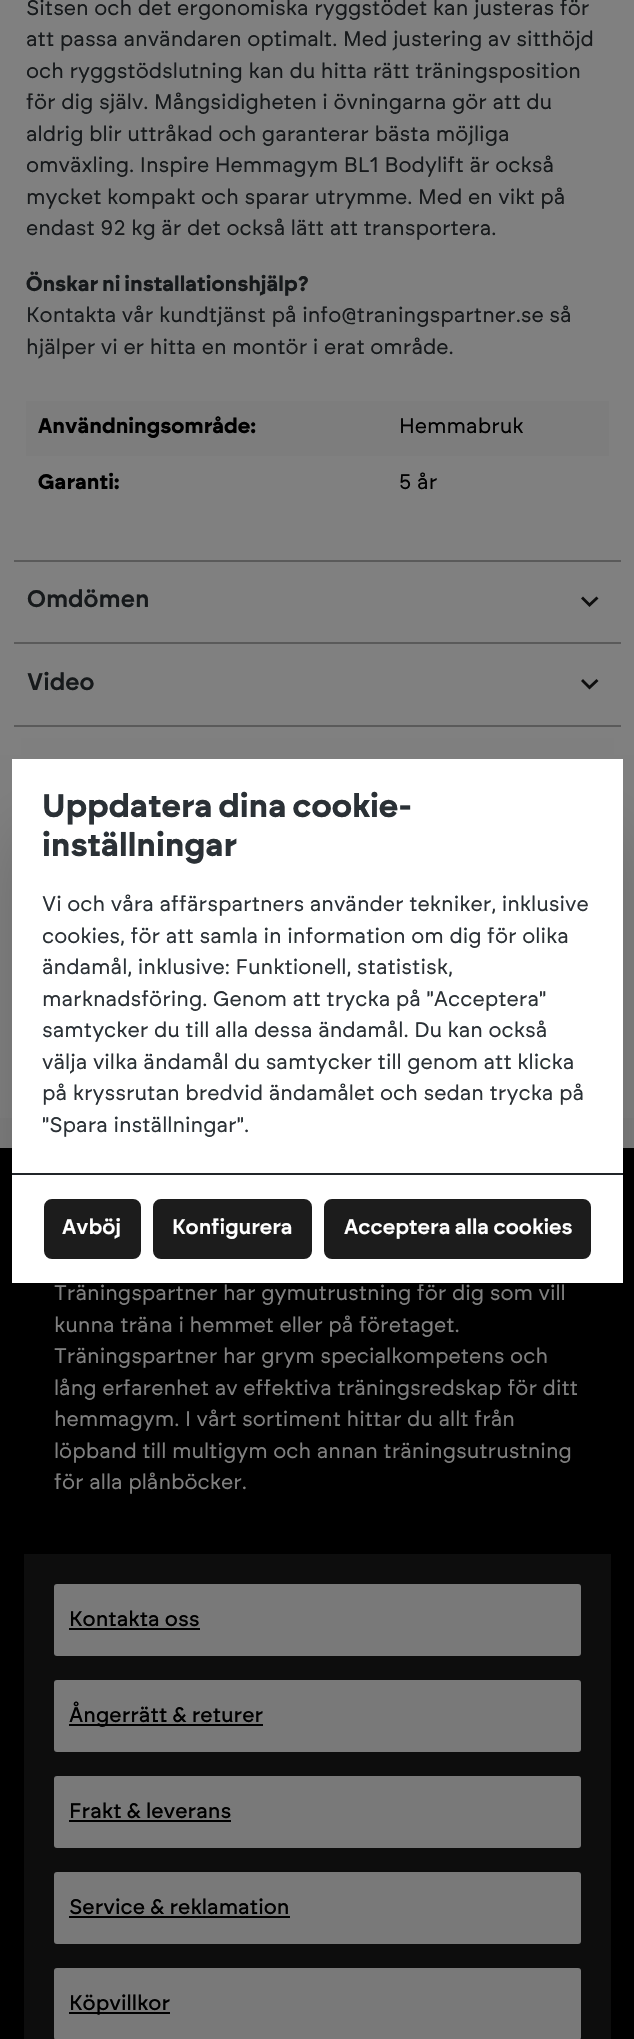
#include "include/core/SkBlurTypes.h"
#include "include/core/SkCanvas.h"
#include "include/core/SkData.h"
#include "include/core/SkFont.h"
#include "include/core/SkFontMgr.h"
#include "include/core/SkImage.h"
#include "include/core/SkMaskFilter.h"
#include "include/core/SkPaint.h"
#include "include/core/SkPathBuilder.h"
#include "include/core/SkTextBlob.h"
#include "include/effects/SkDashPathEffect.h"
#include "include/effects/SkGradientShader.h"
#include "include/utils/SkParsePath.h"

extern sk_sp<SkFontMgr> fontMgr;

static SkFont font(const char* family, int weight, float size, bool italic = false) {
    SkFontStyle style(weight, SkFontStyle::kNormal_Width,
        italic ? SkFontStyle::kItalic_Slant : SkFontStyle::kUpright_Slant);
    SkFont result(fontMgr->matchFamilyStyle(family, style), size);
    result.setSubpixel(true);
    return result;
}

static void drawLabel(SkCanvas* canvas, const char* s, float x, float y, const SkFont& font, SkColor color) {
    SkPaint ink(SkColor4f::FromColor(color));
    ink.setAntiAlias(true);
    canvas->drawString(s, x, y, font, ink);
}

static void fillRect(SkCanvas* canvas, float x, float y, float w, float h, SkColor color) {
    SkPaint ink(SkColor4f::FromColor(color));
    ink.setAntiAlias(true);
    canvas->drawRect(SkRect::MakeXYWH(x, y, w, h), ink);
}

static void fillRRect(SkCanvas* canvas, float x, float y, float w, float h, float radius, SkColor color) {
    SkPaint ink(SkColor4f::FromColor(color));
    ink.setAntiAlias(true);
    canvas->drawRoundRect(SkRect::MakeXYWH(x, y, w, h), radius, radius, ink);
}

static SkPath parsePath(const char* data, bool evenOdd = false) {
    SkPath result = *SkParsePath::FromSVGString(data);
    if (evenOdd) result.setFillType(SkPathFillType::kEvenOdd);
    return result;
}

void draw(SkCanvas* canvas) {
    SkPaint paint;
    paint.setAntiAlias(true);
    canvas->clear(0xFF7D7D7D);
    fillRect(canvas, 0, 0, 634, 1118, 0xFF808080);
    SkFont font1 = font("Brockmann", 400, 21);
    drawLabel(canvas, "Sitsen och det ergonomiska ryggstödet kan justeras för", 26, 15, font1, 0xFF16191B);
    drawLabel(canvas, "att passa användaren optimalt. Med justering av sitthöjd", 26, 46, font1, 0xFF16191B);
    drawLabel(canvas, "och ryggstödslutning kan du hitta rätt träningsposition", 26, 78, font1, 0xFF16191B);
    drawLabel(canvas, "för dig själv. Mångsidigheten i övningarna gör att du", 26, 109, font1, 0xFF16191B);
    drawLabel(canvas, "aldrig blir uttråkad och garanterar bästa möjliga", 26, 141, font1, 0xFF16191B);
    drawLabel(canvas, "omväxling. Inspire Hemmagym BL1 Bodylift är också", 26, 172, font1, 0xFF16191B);
    drawLabel(canvas, "mycket kompakt och sparar utrymme. Med en vikt på", 26, 204, font1, 0xFF16191B);
    drawLabel(canvas, "endast 92 kg är det också lätt att transportera.", 26, 235, font1, 0xFF16191B);
    SkFont font2 = font("Brockmann", 700, 21);
    drawLabel(canvas, "Önskar ni installationshjälp?", 26, 291, font2, 0xFF16191B);
    drawLabel(canvas, "Kontakta vår kundtjänst på info@traningspartner.se så", 26, 322, font1, 0xFF16191B);
    drawLabel(canvas, "hjälper vi er hitta en montör i erat område.", 26, 354, font1, 0xFF16191B);
    fillRect(canvas, 26, 401, 583, 55, 0xFF7D7D7D);
    drawLabel(canvas, "Användningsområde:", 38, 433, font2, 0xFF000000);
    drawLabel(canvas, "Hemmabruk", 399, 433, font1, 0xFF000000);
    drawLabel(canvas, "Garanti:", 38, 489, font2, 0xFF000000);
    drawLabel(canvas, "5 år", 399, 489, font1, 0xFF000000);
    fillRect(canvas, 14, 560, 607, 2, 0xFF5A5A5A);
    SkFont font3 = font("Brockmann", 600, 24);
    drawLabel(canvas, "Omdömen", 27, 607, font3, 0xFF16191B);
    paint.setColor(0xFF0E0E0E);
    canvas->drawPath(parsePath("M598.5 598.5L589.5 607L581 598.5L583 596.5L589.5 603L596.5 596.5Z"), paint);
    fillRect(canvas, 14, 642, 607, 2, 0xFF5A5A5A);
    drawLabel(canvas, "Video", 27, 690, font3, 0xFF16191B);
    canvas->drawPath(parsePath("M598.5 681L589.5 689.5L581 681L583 679L589.5 685.5L596.5 679Z"), paint);
    fillRect(canvas, 14, 725, 607, 2, 0xFF5A5A5A);
    fillRect(canvas, 0, 1148, 634, 891, 0xFF000000);
    paint.setColor(0x33000000);
    paint.setMaskFilter(SkMaskFilter::MakeBlur(kNormal_SkBlurStyle, 32));
    canvas->drawRect(SkRect::MakeXYWH(21, 833, 593, 505), paint);
    paint.setMaskFilter(nullptr);
    fillRect(canvas, 12, 759, 611, 524, 0xFFFFFFFF);
    SkFont font4 = font("Brockmann", 700, 32.5f);
    drawLabel(canvas, "Uppdatera dina cookie-", 42, 817, font4, 0xFF2B3136);
    drawLabel(canvas, "inställningar", 42, 856, font4, 0xFF2B3136);
    drawLabel(canvas, "Vi och våra affärspartners använder tekniker, inklusive", 42, 911, font1, 0xFF2B3136);
    drawLabel(canvas, "cookies, för att samla in information om dig för olika", 42, 943, font1, 0xFF2B3136);
    drawLabel(canvas, "ändamål, inklusive: Funktionell, statistisk,", 42, 974, font1, 0xFF2B3136);
    drawLabel(canvas, "marknadsföring. Genom att trycka på \"Acceptera\"", 42, 1006, font1, 0xFF2B3136);
    drawLabel(canvas, "samtycker du till alla dessa ändamål. Du kan också", 42, 1037, font1, 0xFF2B3136);
    drawLabel(canvas, "välja vilka ändamål du samtycker till genom att klicka", 42, 1069, font1, 0xFF2B3136);
    drawLabel(canvas, "på kryssrutan bredvid ändamålet och sedan trycka på", 42, 1100, font1, 0xFF2B3136);
    drawLabel(canvas, "\"Spara inställningar\".", 42, 1132, font1, 0xFF2B3136);
    fillRect(canvas, 12, 1173, 611, 2, 0xFF212529);
    paint.setColor(0xFF1C1C1C);
    canvas->drawRoundRect(SkRect::MakeXYWH(45, 1200, 95, 58), 7, 7, paint);
    paint.setStroke(true);
    paint.setStrokeWidth(2);
    canvas->drawRoundRect(SkRect::MakeXYWH(45, 1200, 95, 58), 7, 7, paint);
    SkFont font5 = font("Brockmann", 600, 21);
    drawLabel(canvas, "Avböj", 62, 1234, font5, 0xFFFFFFFF);
    paint.setStroke(false);
    canvas->drawRoundRect(SkRect::MakeXYWH(154, 1200, 157, 58), 7, 7, paint);
    paint.setStroke(true);
    canvas->drawRoundRect(SkRect::MakeXYWH(154, 1200, 157, 58), 7, 7, paint);
    drawLabel(canvas, "Konfigurera", 172, 1234, font5, 0xFFFFFFFF);
    paint.setStroke(false);
    canvas->drawRoundRect(SkRect::MakeXYWH(325, 1200, 265, 58), 7, 7, paint);
    paint.setStroke(true);
    canvas->drawRoundRect(SkRect::MakeXYWH(325, 1200, 265, 58), 7, 7, paint);
    drawLabel(canvas, "Acceptera alla cookies", 344, 1234, font5, 0xFFFFFFFF);
    drawLabel(canvas, "Träningspartner har gymutrustning för dig som vill", 54, 1300, font1, 0xFF808080);
    drawLabel(canvas, "kunna träna i hemmet eller på företaget.", 54, 1332, font1, 0xFF808080);
    drawLabel(canvas, "Träningspartner har grym specialkompetens och", 54, 1363, font1, 0xFF808080);
    drawLabel(canvas, "lång erfarenhet av effektiva träningsredskap för ditt", 54, 1395, font1, 0xFF808080);
    drawLabel(canvas, "hemmagym. I vårt sortiment hittar du allt från", 54, 1426, font1, 0xFF808080);
    drawLabel(canvas, "löpband till multigym och annan träningsutrustning", 54, 1458, font1, 0xFF808080);
    drawLabel(canvas, "för alla plånböcker.", 54, 1489, font1, 0xFF808080);
    fillRect(canvas, 24, 1554, 587, 485, 0xFF0D0D0D);
    fillRRect(canvas, 54, 1584, 527, 72, 3, 0xFF797979);
    SkFont font6 = font("Brockmann", 500, 21);
    drawLabel(canvas, "Kontakta oss", 69, 1626, font6, 0xFF000000);
    fillRect(canvas, 69, 1628, 131, 2, 0xFF000000);
    fillRRect(canvas, 54, 1680, 527, 72, 3, 0xFF797979);
    fillRect(canvas, 69, 1724, 194, 2, 0xFF000000);
    drawLabel(canvas, "Ångerrätt & returer", 69, 1722, font6, 0xFF000000);
    fillRRect(canvas, 54, 1776, 527, 72, 3, 0xFF797979);
    drawLabel(canvas, "Frakt & leverans", 69, 1818, font6, 0xFF000000);
    fillRect(canvas, 69, 1820, 162, 2, 0xFF000000);
    fillRRect(canvas, 54, 1872, 527, 72, 3, 0xFF797979);
    drawLabel(canvas, "Service & reklamation", 69, 1914, font6, 0xFF000000);
    fillRect(canvas, 69, 1916, 221, 2, 0xFF000000);
    fillRRect(canvas, 54, 1968, 527, 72, 3, 0xFF797979);
    fillRect(canvas, 69, 2012, 101, 2, 0xFF000000);
    drawLabel(canvas, "Köpvillkor", 69, 2010, font6, 0xFF000000);
}
